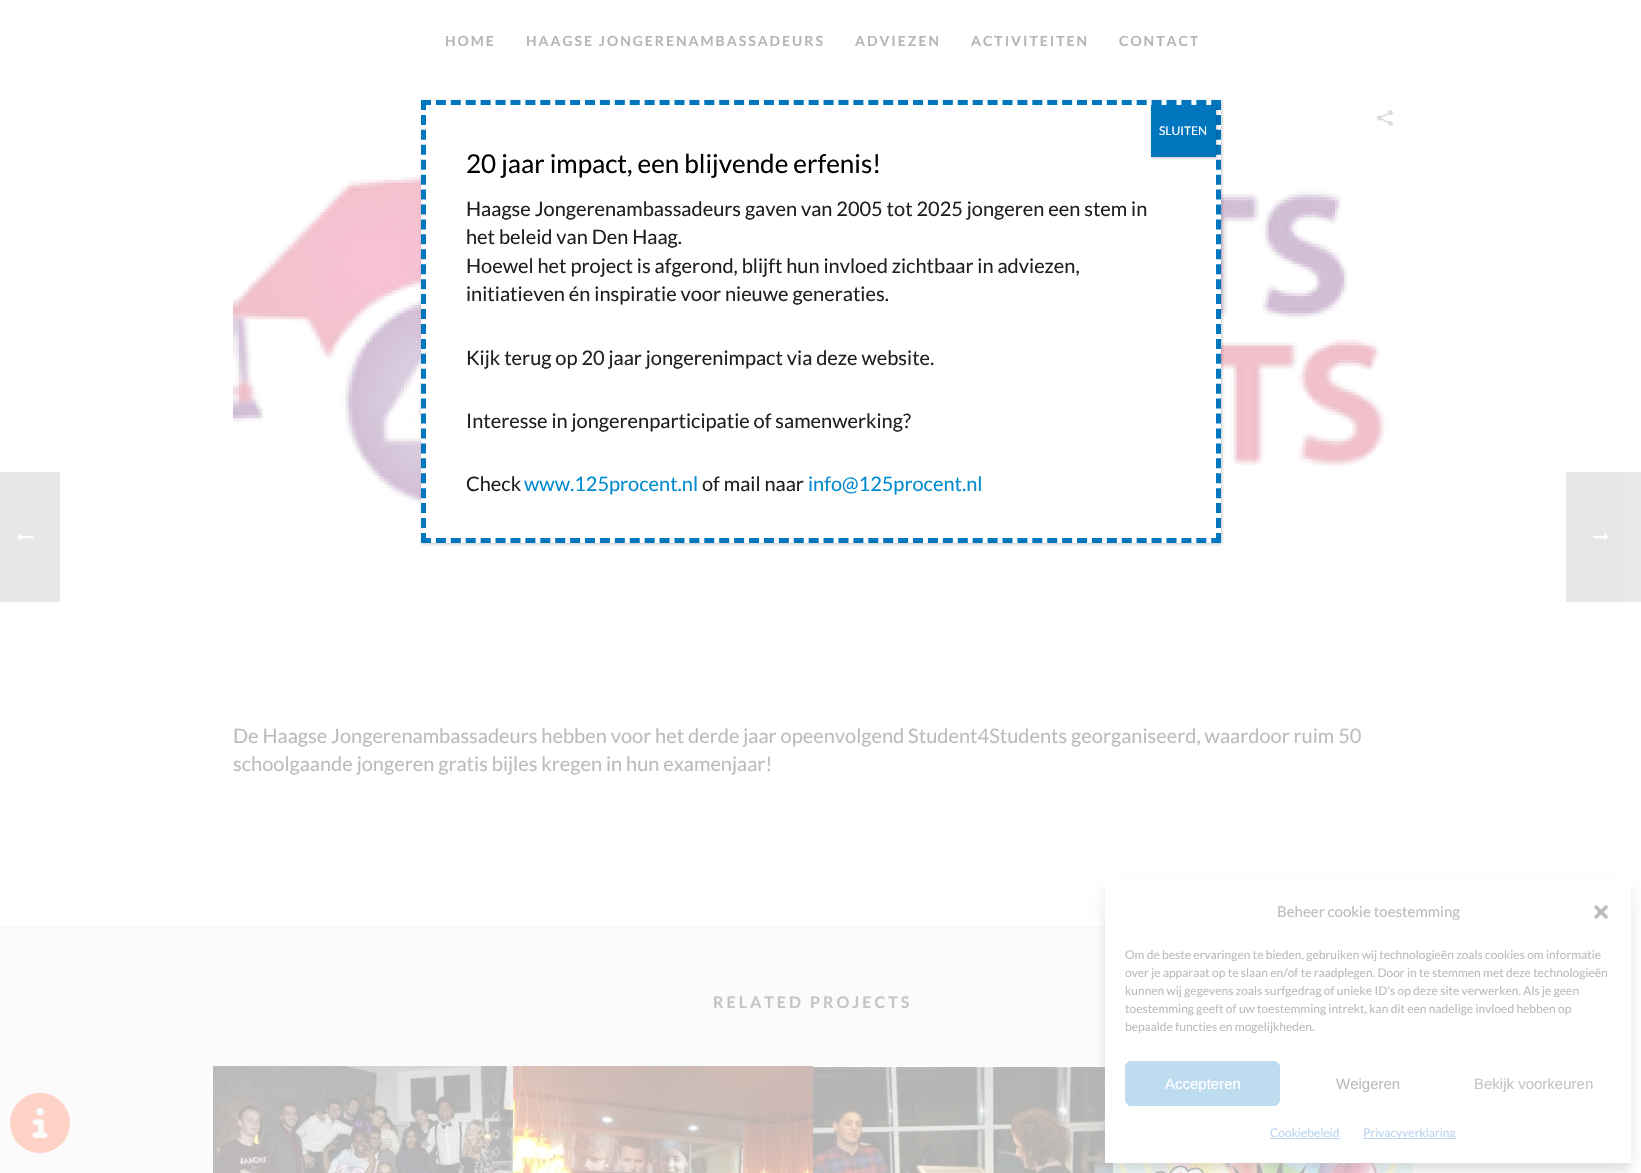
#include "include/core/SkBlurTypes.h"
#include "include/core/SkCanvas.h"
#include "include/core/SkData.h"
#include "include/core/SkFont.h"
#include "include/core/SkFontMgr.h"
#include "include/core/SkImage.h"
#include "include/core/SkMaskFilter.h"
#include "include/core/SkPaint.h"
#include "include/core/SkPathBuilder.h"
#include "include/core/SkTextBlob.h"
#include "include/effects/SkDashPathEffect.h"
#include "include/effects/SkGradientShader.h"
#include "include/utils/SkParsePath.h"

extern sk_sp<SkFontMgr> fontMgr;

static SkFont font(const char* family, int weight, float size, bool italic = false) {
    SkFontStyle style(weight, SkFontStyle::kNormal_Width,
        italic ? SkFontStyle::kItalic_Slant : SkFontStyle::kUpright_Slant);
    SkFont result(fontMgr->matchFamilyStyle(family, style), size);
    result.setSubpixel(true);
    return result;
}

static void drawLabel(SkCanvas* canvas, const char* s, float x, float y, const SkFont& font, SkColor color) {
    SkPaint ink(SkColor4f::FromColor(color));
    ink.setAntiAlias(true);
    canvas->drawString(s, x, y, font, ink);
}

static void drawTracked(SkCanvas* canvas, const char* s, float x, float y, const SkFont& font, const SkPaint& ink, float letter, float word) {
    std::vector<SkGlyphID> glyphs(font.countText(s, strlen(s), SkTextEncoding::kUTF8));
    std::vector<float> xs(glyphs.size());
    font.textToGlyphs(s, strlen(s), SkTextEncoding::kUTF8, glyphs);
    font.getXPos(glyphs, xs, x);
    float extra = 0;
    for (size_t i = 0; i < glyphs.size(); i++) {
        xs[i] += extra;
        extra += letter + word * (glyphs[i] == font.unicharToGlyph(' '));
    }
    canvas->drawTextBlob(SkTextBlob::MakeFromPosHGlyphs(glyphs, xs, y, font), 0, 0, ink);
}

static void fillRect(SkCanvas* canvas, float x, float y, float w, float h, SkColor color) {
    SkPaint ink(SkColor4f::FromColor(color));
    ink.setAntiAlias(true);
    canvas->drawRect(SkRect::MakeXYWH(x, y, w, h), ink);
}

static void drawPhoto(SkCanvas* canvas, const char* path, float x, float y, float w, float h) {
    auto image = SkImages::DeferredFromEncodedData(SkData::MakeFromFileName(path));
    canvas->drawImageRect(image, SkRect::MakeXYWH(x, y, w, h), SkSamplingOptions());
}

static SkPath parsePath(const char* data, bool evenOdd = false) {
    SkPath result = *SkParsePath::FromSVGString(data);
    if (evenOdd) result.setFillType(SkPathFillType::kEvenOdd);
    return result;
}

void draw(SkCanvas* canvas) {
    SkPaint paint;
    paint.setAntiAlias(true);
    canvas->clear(0xFFFFFFFF);
    fillRect(canvas, 1626, 472, 15, 130, 0xFFE8E8E8);
    SkFont font1 = font("Lato", 700, 14);
    paint.setColor(0xFFB6B6B6);
    drawTracked(canvas, "HOME", 445, 46, font1, paint, 2, 0);
    drawTracked(canvas, "HAAGSE JONGERENAMBASSADEURS", 526, 46, font1, paint, 2, 0);
    drawTracked(canvas, "ADVIEZEN", 855, 46, font1, paint, 2, 0);
    drawTracked(canvas, "ACTIVITEITEN", 971, 46, font1, paint, 2, 0);
    drawTracked(canvas, "CONTACT", 1119, 46, font1, paint, 2, 0);
    fillRect(canvas, 1566, 472, 60, 130, 0xFFE7E7E7);
    drawPhoto(canvas, "assets/img1.png", 1377, 110, 16, 16);
    drawPhoto(canvas, "assets/img2.png", 233, 171, 1160, 500);
    SkFont font2 = font("Lato", 400, 20);
    drawLabel(canvas, "De Haagse Jongerenambassadeurs hebben voor het derde jaar opeenvolgend Student4Students georganiseerd, waardoor ruim 50", 233, 743, font2, 0xFFBDBCBC);
    drawLabel(canvas, "schoolgaande jongeren gratis bijles kregen in hun examenjaar!", 233, 771, font2, 0xFFBDBCBC);
    fillRect(canvas, 0, 927, 1626, 246, 0xFFFBFBFB);
    fillRect(canvas, 0, 926, 1105, 1, 0xFFF5F6F7);
    SkFont font3 = font("Lato", 700, 16);
    paint.setColor(0xFFC5C5C5);
    drawTracked(canvas, "RELATED PROJECTS", 713, 1008, font3, paint, 3, 0);
    drawPhoto(canvas, "assets/img3.png", 213, 1066, 300, 107);
    drawPhoto(canvas, "assets/img4.png", 513, 1066, 300, 107);
    drawPhoto(canvas, "assets/img5.png", 813, 1066, 300, 107);
    drawPhoto(canvas, "assets/img6.png", 1113, 1163, 300, 10);
    drawPhoto(canvas, "assets/img7.png", 10, 1093, 60, 60);
    paint.setColor(0x3B020202);
    paint.setMaskFilter(SkMaskFilter::MakeBlur(kNormal_SkBlurStyle, 1.5f));
    canvas->drawRect(SkRect::MakeXYWH(422, 101, 800, 443), paint);
    paint.setMaskFilter(nullptr);
    fillRect(canvas, 421, 100, 800, 443, 0xFFFFFFFF);
    paint.setStroke(true);
    paint.setStrokeWidth(5);
    paint.setColor(0xFF0076BE);
    paint.setPathEffect(SkDashPathEffect::Make({{10, 4.91f}}, 0));
    canvas->drawPath(parsePath("M421 102.5H1221"), paint);
    paint.setPathEffect(nullptr);
    paint.setPathEffect(SkDashPathEffect::Make({{10, 4.93f}}, 0));
    canvas->drawPath(parsePath("M1218.5 100V543"), paint);
    paint.setPathEffect(nullptr);
    paint.setPathEffect(SkDashPathEffect::Make({{10, 4.91f}}, 0));
    canvas->drawPath(parsePath("M421 540.5H1221"), paint);
    paint.setPathEffect(nullptr);
    paint.setPathEffect(SkDashPathEffect::Make({{10, 4.93f}}, 0));
    canvas->drawPath(parsePath("M423.5 100V543"), paint);
    paint.setPathEffect(nullptr);
    paint.setStroke(false);
    paint.setColor(0x3B020202);
    paint.setMaskFilter(SkMaskFilter::MakeBlur(kNormal_SkBlurStyle, 1.5f));
    canvas->drawRect(SkRect::MakeXYWH(1152, 106, 65, 52), paint);
    paint.setMaskFilter(nullptr);
    fillRect(canvas, 1151, 105, 65, 52, 0xFF0076BE);
    SkFont font4 = font("Lato", 400, 12);
    drawLabel(canvas, "SLUITEN", 1159, 135, font4, 0xFFFFFFFF);
    SkFont font5 = font("Lato", 400, 26);
    drawLabel(canvas, "20 jaar impact, een blijvende erfenis!", 466, 173, font5, 0xFF000000);
    drawLabel(canvas, "Haagse Jongerenambassadeurs gaven van 2005 tot 2025 jongeren een stem in", 466, 216, font2, 0xFF231F20);
    drawLabel(canvas, "het beleid van Den Haag.", 466, 244, font2, 0xFF231F20);
    drawLabel(canvas, "Hoewel het project is afgerond, blijft hun invloed zichtbaar in adviezen,", 466, 273, font2, 0xFF231F20);
    drawLabel(canvas, "initiatieven én inspiratie voor nieuwe generaties.", 466, 301, font2, 0xFF231F20);
    drawLabel(canvas, "Kijk terug op 20 jaar jongerenimpact via deze website.", 466, 365, font2, 0xFF231F20);
    drawLabel(canvas, "Interesse in jongerenparticipatie of samenwerking?", 466, 428, font2, 0xFF231F20);
    drawLabel(canvas, "Check", 466, 491, font2, 0xFF231F20);
    drawLabel(canvas, "www.125procent.nl", 524, 491, font2, 0xFF008AD0);
    drawLabel(canvas, "of mail naar", 702, 491, font2, 0xFF231F20);
    drawLabel(canvas, "info@125procent.nl", 808, 491, font2, 0xFF008AD0);
    fillRect(canvas, 0, 472, 60, 130, 0xFFE7E7E7);
    drawPhoto(canvas, "assets/img8.png", 17, 533, 16, 8);
    drawPhoto(canvas, "assets/img9.png", 1593, 533, 16, 8);
    paint.setColor(0x3BB3B3B3);
    paint.setMaskFilter(SkMaskFilter::MakeBlur(kNormal_SkBlurStyle, 3));
    canvas->drawRect(SkRect::MakeXYWH(1105, 888, 526, 281), paint);
    paint.setMaskFilter(nullptr);
    paint.setColor(0x30B3B3B3);
    paint.setMaskFilter(SkMaskFilter::MakeBlur(kNormal_SkBlurStyle, 10));
    canvas->drawRect(SkRect::MakeXYWH(1105, 892, 526, 281), paint);
    paint.setMaskFilter(nullptr);
    fillRect(canvas, 1105, 882, 526, 281, 0xFFFFFFFF);
    SkFont font6 = font("Lato", 400, 15);
    drawLabel(canvas, "Beheer cookie toestemming", 1277, 917, font6, 0xFFBDBCBC);
    drawPhoto(canvas, "assets/img10.png", 1594, 905, 14, 14);
    drawLabel(canvas, "Om de beste ervaringen te bieden, gebruiken wij technologieën zoals cookies om informatie", 1125, 959, font4, 0xFFBDBCBC);
    drawLabel(canvas, "over je apparaat op te slaan en/of te raadplegen. Door in te stemmen met deze technologieën", 1125, 977, font4, 0xFFBDBCBC);
    drawLabel(canvas, "kunnen wij gegevens zoals surfgedrag of unieke ID's op deze site verwerken. Als je geen", 1125, 995, font4, 0xFFBDBCBC);
    drawLabel(canvas, "toestemming geeft of uw toestemming intrekt, kan dit een nadelige invloed hebben op", 1125, 1013, font4, 0xFFBDBCBC);
    drawLabel(canvas, "bepaalde functies en mogelijkheden.", 1125, 1031, font4, 0xFFBDBCBC);
    paint.setColor(0xFFBEDCEF);
    canvas->drawRoundRect(SkRect::MakeXYWH(1125.5f, 1061.5f, 154, 44), 5.5f, 5.5f, paint);
    paint.setStroke(true);
    paint.setStrokeWidth(1);
    canvas->drawRoundRect(SkRect::MakeXYWH(1125.5f, 1061.5f, 154, 44), 5.5f, 5.5f, paint);
    SkFont font7 = font("Liberation Sans", 400, 15);
    drawLabel(canvas, "Accepteren", 1165, 1089, font7, 0xFFFFFFFF);
    paint.setColor(0xFFFBFBFB);
    canvas->drawRoundRect(SkRect::MakeXYWH(1290.5f, 1061.5f, 155, 44), 5.5f, 5.5f, paint);
    drawLabel(canvas, "Weigeren", 1336, 1089, font7, 0xFFBDBCBC);
    canvas->drawRoundRect(SkRect::MakeXYWH(1456.5f, 1061.5f, 154, 44), 5.5f, 5.5f, paint);
    drawLabel(canvas, "Bekijk voorkeuren", 1474, 1089, font7, 0xFFC5C5C5);
    drawLabel(canvas, "Cookiebeleid", 1270, 1137, font4, 0xFFBCD5EC);
    fillRect(canvas, 1270, 1138, 70, 1, 0xFFBCD5EC);
    fillRect(canvas, 1363, 1138, 93, 1, 0xFFBCD5EC);
    drawLabel(canvas, "Privacyverklaring", 1363, 1137, font4, 0xFFBCD5EC);
}
